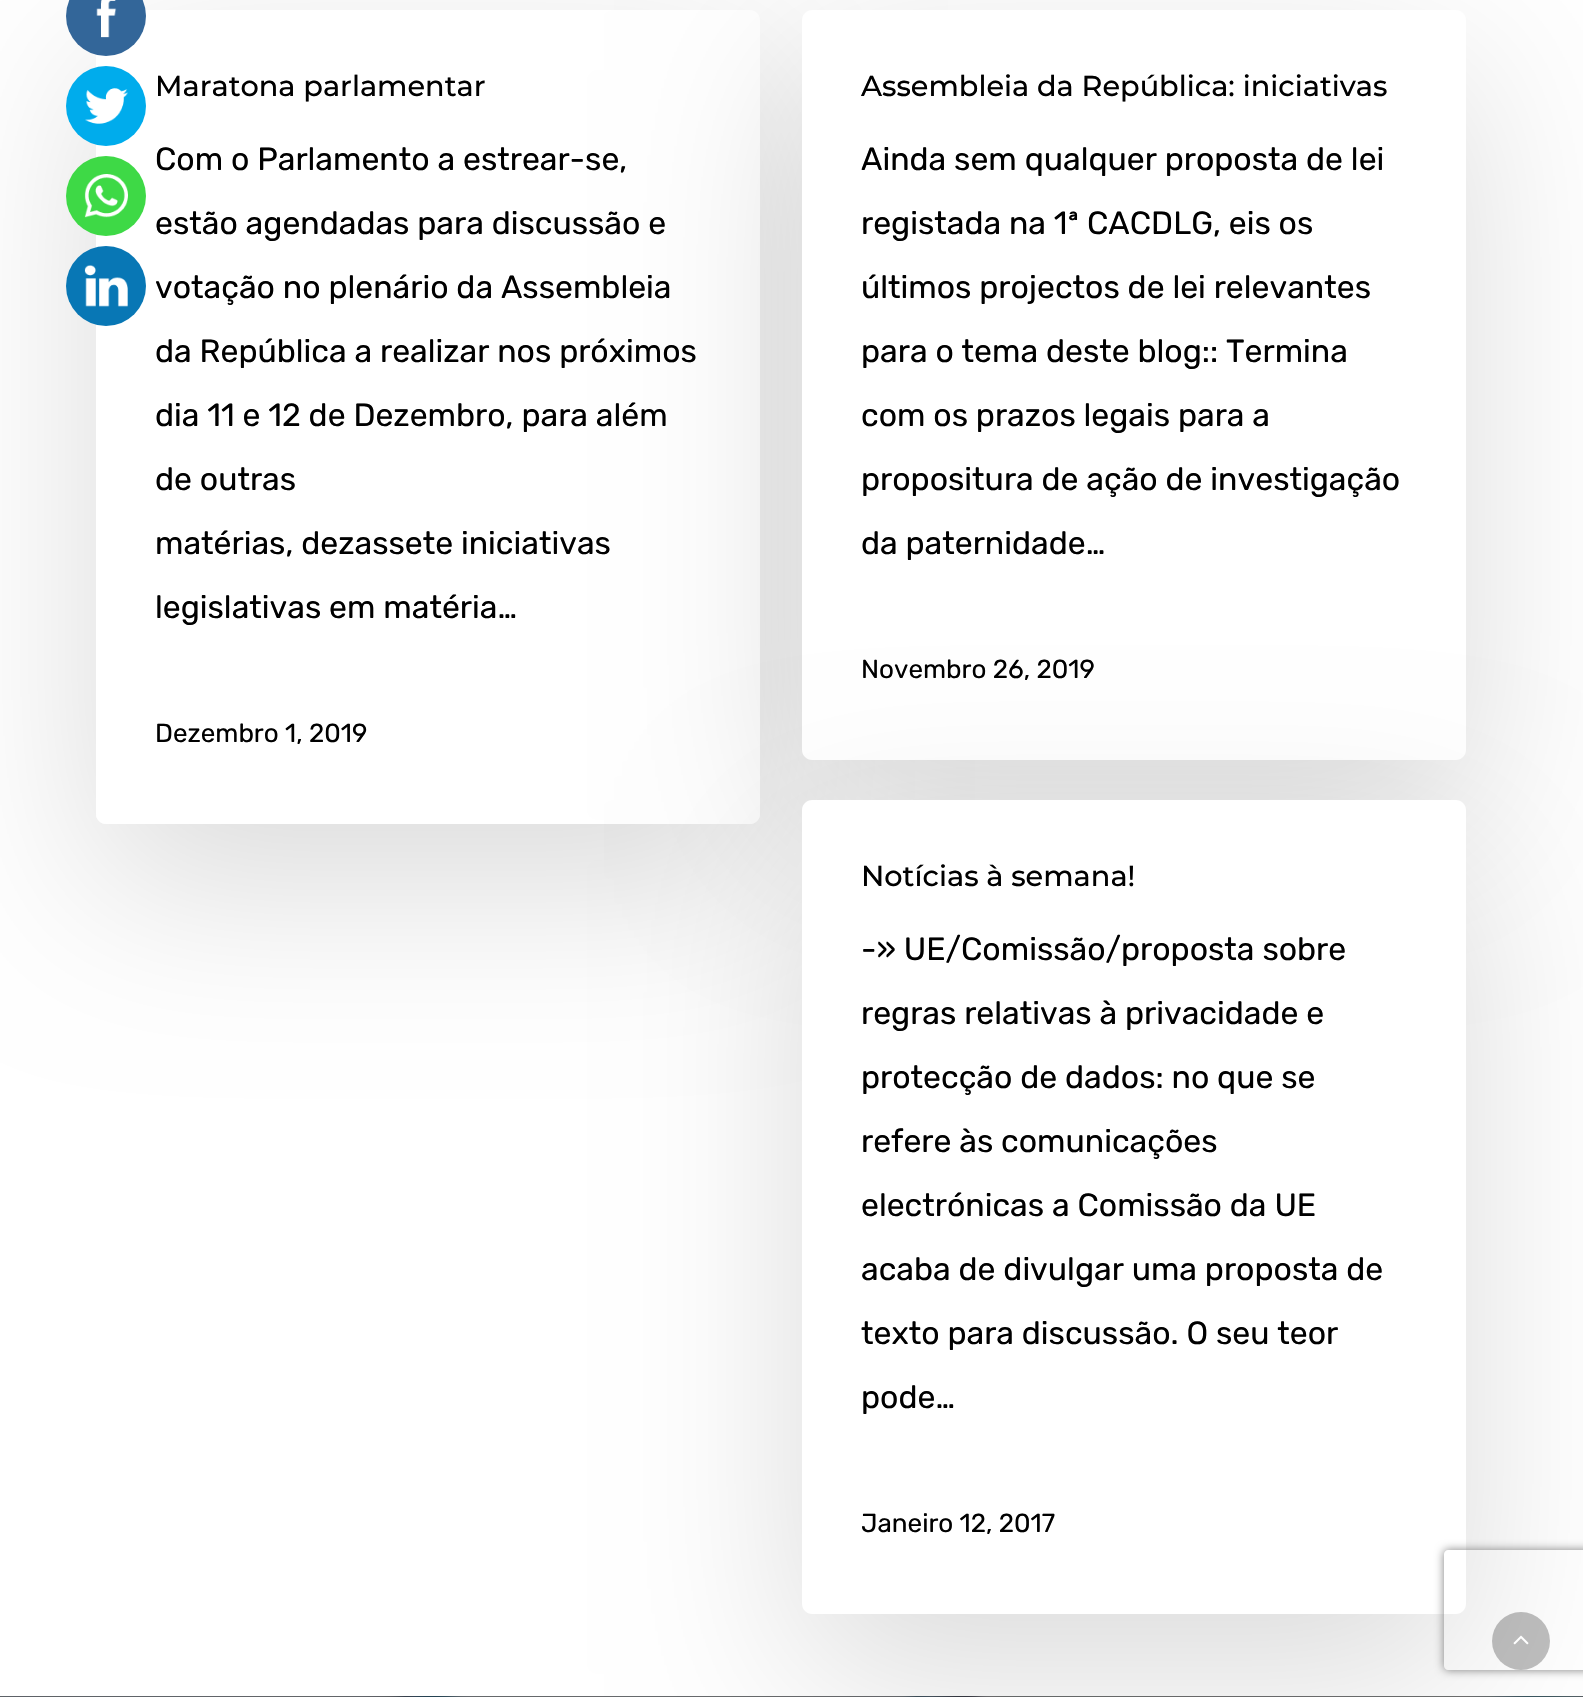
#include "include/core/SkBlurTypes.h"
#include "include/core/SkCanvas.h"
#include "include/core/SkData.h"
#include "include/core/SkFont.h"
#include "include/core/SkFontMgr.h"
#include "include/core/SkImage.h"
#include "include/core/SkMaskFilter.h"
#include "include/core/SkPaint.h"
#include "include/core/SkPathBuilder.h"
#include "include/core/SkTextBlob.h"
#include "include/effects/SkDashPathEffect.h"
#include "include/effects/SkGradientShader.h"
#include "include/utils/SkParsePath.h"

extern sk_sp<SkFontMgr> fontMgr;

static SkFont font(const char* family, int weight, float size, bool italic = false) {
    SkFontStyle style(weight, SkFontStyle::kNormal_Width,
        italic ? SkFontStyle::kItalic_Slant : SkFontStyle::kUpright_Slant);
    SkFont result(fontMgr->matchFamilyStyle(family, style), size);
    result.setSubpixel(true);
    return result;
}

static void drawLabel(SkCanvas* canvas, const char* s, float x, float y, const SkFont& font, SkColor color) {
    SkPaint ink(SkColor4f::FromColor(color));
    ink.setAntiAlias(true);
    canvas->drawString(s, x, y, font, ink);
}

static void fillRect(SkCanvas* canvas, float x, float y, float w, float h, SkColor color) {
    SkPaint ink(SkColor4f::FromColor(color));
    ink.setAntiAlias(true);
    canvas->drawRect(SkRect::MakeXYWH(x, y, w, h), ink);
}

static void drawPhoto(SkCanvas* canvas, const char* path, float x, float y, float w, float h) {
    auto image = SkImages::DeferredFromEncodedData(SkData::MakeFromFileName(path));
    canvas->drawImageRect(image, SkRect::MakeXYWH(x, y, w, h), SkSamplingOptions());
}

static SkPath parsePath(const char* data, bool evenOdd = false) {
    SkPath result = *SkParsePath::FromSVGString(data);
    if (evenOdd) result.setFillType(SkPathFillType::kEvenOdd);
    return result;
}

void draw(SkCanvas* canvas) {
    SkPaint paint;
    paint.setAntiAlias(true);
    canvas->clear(0xFFFFFFFF);
    canvas->save();
    canvas->clipPath(parsePath("M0 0H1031V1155H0ZM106 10H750C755.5 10 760 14.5 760 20V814C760 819.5 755.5 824 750 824H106C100.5 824 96 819.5 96 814V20C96 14.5 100.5 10 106 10Z", true), true);
    paint.setColor(0x24000000);
    paint.setMaskFilter(SkMaskFilter::MakeBlur(kNormal_SkBlurStyle, 90));
    canvas->drawRoundRect(SkRect::MakeXYWH(96, 70, 664, 814), 10, 10, paint);
    paint.setMaskFilter(nullptr);
    canvas->restore();
    paint.setColor(0xFFFFFFFF);
    canvas->drawPath(parsePath("M96 50H760V814C760 819.5 755.5 824 750 824H106C100.5 824 96 819.5 96 814Z"), paint);
    paint.setColor(0xFF336699);
    canvas->drawCircle(106, 16, 40, paint);
    drawPhoto(canvas, "assets/img1.png", 96, 0, 21, 38);
    paint.setColor(0xFF00ACEC);
    canvas->drawCircle(106, 106, 40, paint);
    drawPhoto(canvas, "assets/img2.png", 85, 88, 43, 36);
    paint.setColor(0xFF3ED946);
    canvas->drawCircle(106, 196, 40, paint);
    drawPhoto(canvas, "assets/img3.png", 84, 174, 44, 44);
    paint.setColor(0xFF0877B5);
    canvas->drawCircle(106, 286, 40, paint);
    drawPhoto(canvas, "assets/img4.png", 84, 265, 44, 42);
    SkFont font1 = font("Montserrat", 500, 28.75f);
    drawLabel(canvas, "Maratona parlamentar", 155, 96, font1, 0xFF000000);
    SkFont font2 = font("Rubik", 400, 32);
    drawLabel(canvas, "Com o Parlamento a estrear-se,", 155, 170, font2, 0xFF000000);
    drawLabel(canvas, "estão agendadas para discussão e", 155, 234, font2, 0xFF000000);
    drawLabel(canvas, "votação no plenário da Assembleia", 155, 298, font2, 0xFF000000);
    drawLabel(canvas, "da República a realizar nos próximos", 155, 362, font2, 0xFF000000);
    drawLabel(canvas, "dia 11 e 12 de Dezembro, para além", 155, 426, font2, 0xFF000000);
    drawLabel(canvas, "de outras", 155, 490, font2, 0xFF000000);
    drawLabel(canvas, "matérias, dezassete iniciativas", 155, 554, font2, 0xFF000000);
    drawLabel(canvas, "legislativas em matéria…", 155, 618, font2, 0xFF000000);
    SkFont font3 = font("Rubik", 400, 26);
    drawLabel(canvas, "Dezembro 1, 2019", 155, 742, font3, 0xFF000000);
    paint.setColor(0x24000000);
    paint.setMaskFilter(SkMaskFilter::MakeBlur(kNormal_SkBlurStyle, 90));
    canvas->drawRoundRect(SkRect::MakeXYWH(802, 70, 664, 750), 10, 10, paint);
    paint.setMaskFilter(nullptr);
    paint.setColor(0xFFFFFFFF);
    canvas->drawPath(parsePath("M812 10H1456C1461.5 10 1466 14.5 1466 20V50H802V20C802 14.5 806.5 10 812 10Z"), paint);
    canvas->drawPath(parsePath("M802 50H1466V750C1466 755.5 1461.5 760 1456 760H812C806.5 760 802 755.5 802 750Z"), paint);
    drawLabel(canvas, "Assembleia da República: iniciativas", 861, 96, font1, 0xFF000000);
    drawLabel(canvas, "Ainda sem qualquer proposta de lei", 861, 170, font2, 0xFF000000);
    drawLabel(canvas, "registada na 1ª CACDLG, eis os", 861, 234, font2, 0xFF000000);
    drawLabel(canvas, "últimos projectos de lei relevantes", 861, 298, font2, 0xFF000000);
    drawLabel(canvas, "para o tema deste blog:: Termina", 861, 362, font2, 0xFF000000);
    drawLabel(canvas, "com os prazos legais para a", 861, 426, font2, 0xFF000000);
    drawLabel(canvas, "propositura de ação de investigação", 861, 490, font2, 0xFF000000);
    drawLabel(canvas, "da paternidade…", 861, 554, font2, 0xFF000000);
    drawLabel(canvas, "Novembro 26, 2019", 861, 678, font3, 0xFF000000);
    drawPhoto(canvas, "assets/img5.png", 0, 1696, 1583, 1);
    fillRect(canvas, 0, 1696, 1583, 1, 0x80000000);
    paint.setColor(0x24000000);
    paint.setMaskFilter(SkMaskFilter::MakeBlur(kNormal_SkBlurStyle, 90));
    canvas->drawRoundRect(SkRect::MakeXYWH(802, 860, 664, 814), 10, 10, paint);
    paint.setMaskFilter(nullptr);
    paint.setColor(0xFFFFFFFF);
    canvas->drawPath(parsePath("M812 800H1456C1461.5 800 1466 804.5 1466 810V840H802V810C802 804.5 806.5 800 812 800Z"), paint);
    canvas->drawPath(parsePath("M802 840H1466V1604C1466 1609.5 1461.5 1614 1456 1614H812C806.5 1614 802 1609.5 802 1604Z"), paint);
    drawLabel(canvas, "Notícias à semana!", 861, 886, font1, 0xFF000000);
    drawLabel(canvas, "-» UE/Comissão/proposta sobre", 861, 960, font2, 0xFF000000);
    drawLabel(canvas, "regras relativas à privacidade e", 861, 1024, font2, 0xFF000000);
    drawLabel(canvas, "protecção de dados: no que se", 861, 1088, font2, 0xFF000000);
    drawLabel(canvas, "refere às comunicações", 861, 1152, font2, 0xFF000000);
    drawLabel(canvas, "electrónicas a Comissão da UE", 861, 1216, font2, 0xFF000000);
    drawLabel(canvas, "acaba de divulgar uma proposta de", 861, 1280, font2, 0xFF000000);
    drawLabel(canvas, "texto para discussão. O seu teor", 861, 1344, font2, 0xFF000000);
    drawLabel(canvas, "pode…", 861, 1408, font2, 0xFF000000);
    drawLabel(canvas, "Janeiro 12, 2017", 861, 1532, font3, 0xFF000000);
    paint.setColor(0x40000000);
    canvas->drawCircle(1521, 1641, 29, paint);
    drawPhoto(canvas, "assets/img6.png", 1513, 1635, 16, 10);
    canvas->save();
    canvas->clipPath(parsePath("M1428 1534H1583V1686H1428ZM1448 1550H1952C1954 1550 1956 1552 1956 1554V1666C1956 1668 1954 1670 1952 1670H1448C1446 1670 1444 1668 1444 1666V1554C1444 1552 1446 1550 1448 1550Z", true), true);
    paint.setColor(0xFF808080);
    paint.setMaskFilter(SkMaskFilter::MakeBlur(kNormal_SkBlurStyle, 5));
    canvas->drawRoundRect(SkRect::MakeXYWH(1444, 1550, 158, 120), 4, 4, paint);
    paint.setMaskFilter(nullptr);
    canvas->restore();
}
